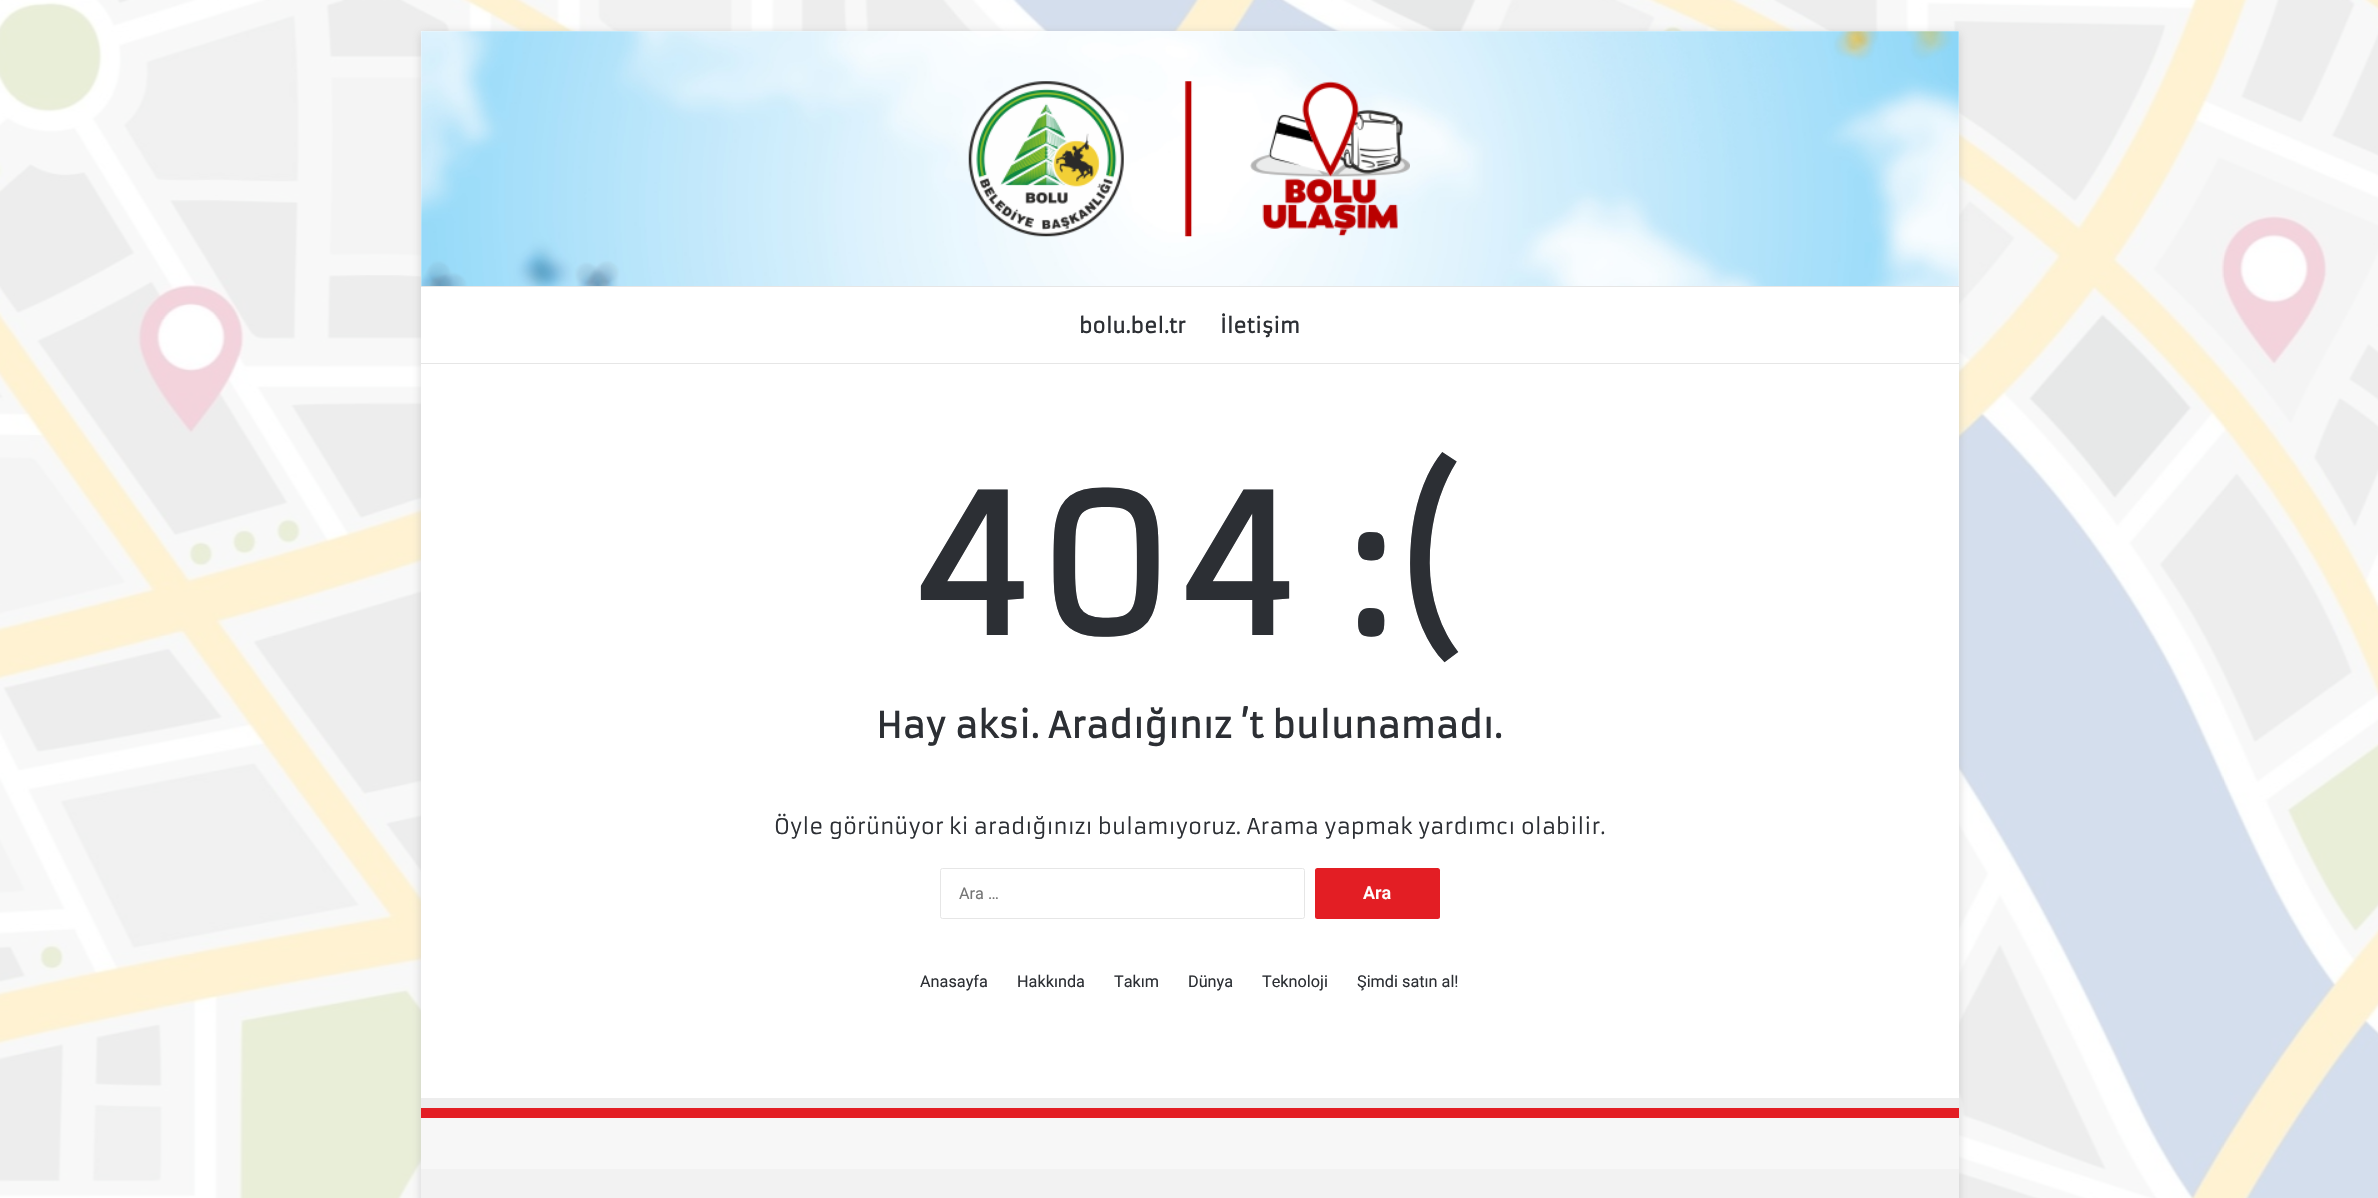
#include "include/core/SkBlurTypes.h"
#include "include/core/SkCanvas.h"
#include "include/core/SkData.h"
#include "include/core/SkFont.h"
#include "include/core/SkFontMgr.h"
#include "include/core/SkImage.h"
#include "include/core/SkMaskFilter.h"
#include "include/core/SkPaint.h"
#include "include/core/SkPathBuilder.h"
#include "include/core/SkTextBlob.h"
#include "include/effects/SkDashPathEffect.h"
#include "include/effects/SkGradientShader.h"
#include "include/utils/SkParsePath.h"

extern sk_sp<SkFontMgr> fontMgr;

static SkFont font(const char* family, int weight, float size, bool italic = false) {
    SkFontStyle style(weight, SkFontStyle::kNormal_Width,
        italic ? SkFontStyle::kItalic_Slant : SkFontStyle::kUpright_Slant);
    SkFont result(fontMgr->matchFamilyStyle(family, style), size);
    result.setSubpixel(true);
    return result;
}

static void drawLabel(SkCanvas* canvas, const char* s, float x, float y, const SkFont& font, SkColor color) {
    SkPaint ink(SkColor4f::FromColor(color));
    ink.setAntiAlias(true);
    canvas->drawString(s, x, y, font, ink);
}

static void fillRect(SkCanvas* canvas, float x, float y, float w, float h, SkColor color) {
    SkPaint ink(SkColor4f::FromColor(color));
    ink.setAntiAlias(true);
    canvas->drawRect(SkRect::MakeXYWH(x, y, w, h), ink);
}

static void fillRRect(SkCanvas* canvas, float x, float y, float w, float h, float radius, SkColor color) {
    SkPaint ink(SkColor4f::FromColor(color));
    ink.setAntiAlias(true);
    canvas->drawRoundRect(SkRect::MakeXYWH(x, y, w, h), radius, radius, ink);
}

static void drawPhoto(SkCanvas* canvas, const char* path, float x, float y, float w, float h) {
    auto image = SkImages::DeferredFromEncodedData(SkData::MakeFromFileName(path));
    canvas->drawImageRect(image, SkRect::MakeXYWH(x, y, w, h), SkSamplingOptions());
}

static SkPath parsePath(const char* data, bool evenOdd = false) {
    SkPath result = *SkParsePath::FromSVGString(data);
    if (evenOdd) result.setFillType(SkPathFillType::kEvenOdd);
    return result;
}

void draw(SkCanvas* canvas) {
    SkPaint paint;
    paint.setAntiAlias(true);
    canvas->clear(0xFFFFFFFF);
    drawPhoto(canvas, "assets/img1.png", 0, 0, 2378, 1198);
    paint.setColor(0x80ABABAB);
    paint.setMaskFilter(SkMaskFilter::MakeBlur(kNormal_SkBlurStyle, 4.5f));
    canvas->drawRect(SkRect::MakeXYWH(421, 33, 1538, 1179), paint);
    paint.setMaskFilter(nullptr);
    fillRect(canvas, 421, 31, 1538, 1067, 0xFFFFFFFF);
    drawPhoto(canvas, "assets/img2.png", 421, 31, 1538, 255);
    drawPhoto(canvas, "assets/img3.png", 968, 81, 442, 156);
    fillRect(canvas, 421, 286, 1538, 1, 0xFFE6E6E6);
    fillRect(canvas, 421, 363, 1538, 1, 0xFFE6E6E6);
    SkFont font1 = font("Armata", 700, 20);
    drawLabel(canvas, "bolu.bel.tr", 1079, 333, font1, 0xFF2C2F34);
    drawLabel(canvas, "İletişim", 1220, 333, font1, 0xFF2C2F34);
    SkFont font2 = font("Armata", 700, 187.5f);
    drawLabel(canvas, "404 :(", 908, 635, font2, 0xFF2C2F34);
    SkFont font3 = font("Armata", 700, 35);
    drawLabel(canvas, "Hay aksi. Aradığınız ’t bulunamadı.", 876, 738, font3, 0xFF2C2F34);
    SkFont font4 = font("Armata", 400, 21.25f);
    drawLabel(canvas, "Öyle görünüyor ki aradığınızı bulamıyoruz. Arama yapmak yardımcı olabilir.", 774, 834, font4, 0xFF2C2F34);
    paint.setStroke(true);
    paint.setStrokeWidth(1);
    paint.setColor(0xFFE6E6E6);
    canvas->drawRoundRect(SkRect::MakeXYWH(940.5f, 868.5f, 364, 50), 2, 2, paint);
    SkFont font5 = font("Roboto", 400, 16.25f);
    drawLabel(canvas, "Ara …", 959, 899, font5, 0xFF757575);
    fillRRect(canvas, 1315, 868, 125, 51, 2.5f, 0xFFE31E24);
    SkFont font6 = font("Roboto", 600, 18);
    drawLabel(canvas, "Ara", 1363, 899, font6, 0xFFFFFFFF);
    drawLabel(canvas, "Anasayfa", 920, 987, font5, 0xFF2C2F34);
    drawLabel(canvas, "Hakkında", 1017, 987, font5, 0xFF2C2F34);
    drawLabel(canvas, "Takım", 1114, 987, font5, 0xFF2C2F34);
    drawLabel(canvas, "Dünya", 1188, 987, font5, 0xFF2C2F34);
    drawLabel(canvas, "Teknoloji", 1262, 987, font5, 0xFF2C2F34);
    drawLabel(canvas, "Şimdi satın al!", 1357, 987, font5, 0xFF2C2F34);
    fillRect(canvas, 421, 1118, 1538, 51, 0xFFF7F7F7);
    paint.setStroke(false);
    paint.setColor(0xFFEDEDED);
    canvas->drawPath(parsePath("M421 1098V1159V1108H1959V1159V1098Z"), paint);
    fillRect(canvas, 421, 1108, 1538, 10, 0xFFE31E24);
    fillRect(canvas, 421, 1169, 1538, 29, 0xFFF2F2F2);
}
